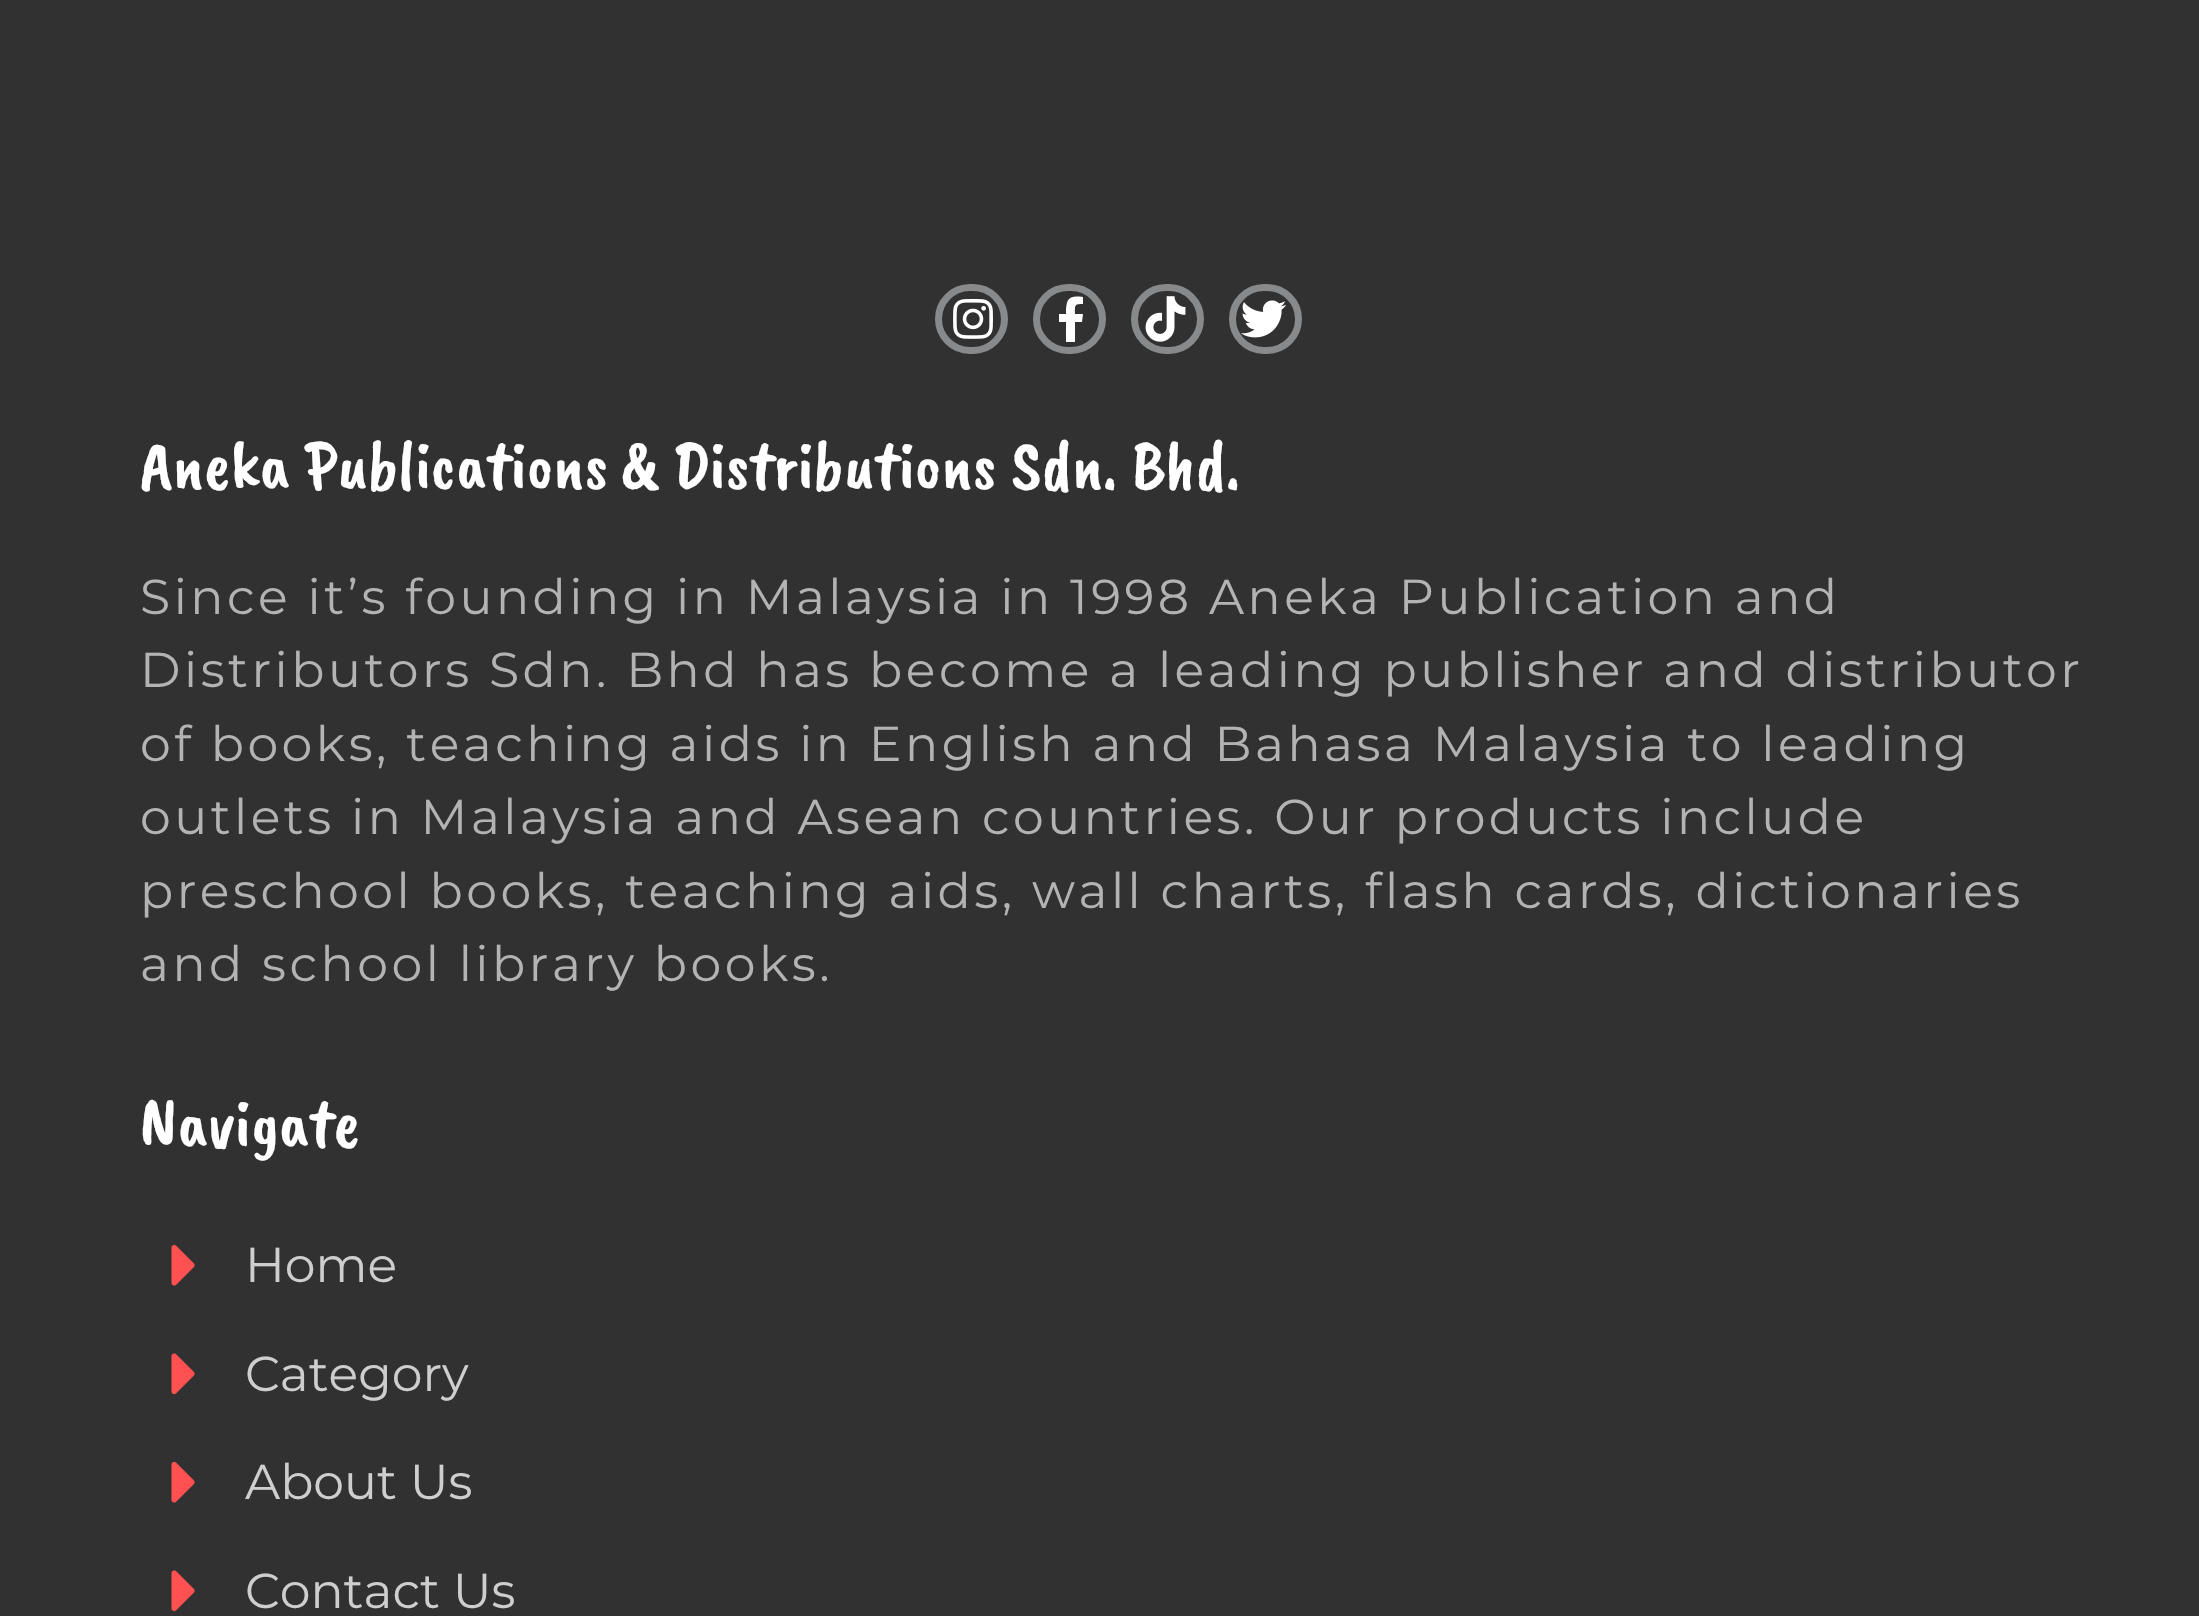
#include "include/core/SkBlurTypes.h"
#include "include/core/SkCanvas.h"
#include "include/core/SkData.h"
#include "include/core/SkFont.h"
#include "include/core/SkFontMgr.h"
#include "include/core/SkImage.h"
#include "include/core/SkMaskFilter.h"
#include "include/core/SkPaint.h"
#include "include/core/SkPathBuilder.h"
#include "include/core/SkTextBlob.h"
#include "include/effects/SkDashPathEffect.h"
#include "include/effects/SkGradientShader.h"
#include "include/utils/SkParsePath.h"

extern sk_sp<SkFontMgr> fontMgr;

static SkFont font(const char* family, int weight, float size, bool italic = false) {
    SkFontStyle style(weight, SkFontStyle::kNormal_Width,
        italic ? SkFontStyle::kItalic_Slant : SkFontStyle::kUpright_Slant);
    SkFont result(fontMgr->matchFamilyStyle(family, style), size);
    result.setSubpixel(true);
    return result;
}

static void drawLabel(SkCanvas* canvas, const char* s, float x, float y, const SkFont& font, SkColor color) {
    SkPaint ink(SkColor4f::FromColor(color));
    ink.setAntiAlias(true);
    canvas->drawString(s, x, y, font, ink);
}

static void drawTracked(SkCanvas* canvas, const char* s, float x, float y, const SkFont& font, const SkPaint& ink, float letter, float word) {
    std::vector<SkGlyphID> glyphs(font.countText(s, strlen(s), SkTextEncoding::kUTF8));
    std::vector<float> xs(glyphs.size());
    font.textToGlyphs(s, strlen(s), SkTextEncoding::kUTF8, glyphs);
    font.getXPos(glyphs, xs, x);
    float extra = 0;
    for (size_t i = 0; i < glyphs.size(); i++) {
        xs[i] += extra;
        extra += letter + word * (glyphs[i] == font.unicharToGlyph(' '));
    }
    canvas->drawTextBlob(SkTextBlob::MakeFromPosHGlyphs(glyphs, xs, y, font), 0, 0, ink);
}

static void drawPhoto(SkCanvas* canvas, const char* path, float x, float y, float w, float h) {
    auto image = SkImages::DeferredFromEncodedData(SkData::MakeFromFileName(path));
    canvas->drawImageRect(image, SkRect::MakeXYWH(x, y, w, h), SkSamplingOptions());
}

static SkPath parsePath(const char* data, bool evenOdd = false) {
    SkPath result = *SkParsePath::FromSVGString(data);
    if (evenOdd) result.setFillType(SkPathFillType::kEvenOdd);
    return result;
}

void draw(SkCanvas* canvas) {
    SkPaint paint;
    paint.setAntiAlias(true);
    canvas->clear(0xFF313131);
    paint.setStroke(true);
    paint.setStrokeWidth(7);
    paint.setColor(0xFF88898A);
    canvas->drawRoundRect(SkRect::MakeXYWH(938.5f, 287.5f, 66, 63), 31.5f, 31.5f, paint);
    drawPhoto(canvas, "assets/img1.png", 953, 298, 40, 41);
    canvas->drawRoundRect(SkRect::MakeXYWH(1036.5f, 287.5f, 66, 63), 31.5f, 31.5f, paint);
    paint.setStroke(false);
    paint.setColor(0xFFFFFFFF);
    canvas->drawPath(parsePath("M1082 322H1075V342H1066V322H1059V314H1066C1066 299 1068 295 1083 297V304C1074 304 1075 305 1075 314H1083Z"), paint);
    paint.setStroke(true);
    paint.setColor(0xFF88898A);
    canvas->drawRoundRect(SkRect::MakeXYWH(1134.5f, 287.5f, 66, 63), 31.5f, 31.5f, paint);
    drawPhoto(canvas, "assets/img2.png", 1145, 296, 41, 46);
    canvas->drawRoundRect(SkRect::MakeXYWH(1232.5f, 287.5f, 66, 63), 31.5f, 31.5f, paint);
    drawPhoto(canvas, "assets/img3.png", 1241, 300, 46, 38);
    SkFont font1 = font("Caveat Brush", 400, 70);
    drawLabel(canvas, "Aneka Publications & Distributions Sdn. Bhd.", 140, 488, font1, 0xFFFFFFFF);
    SkFont font2 = font("Montserrat", 400, 49);
    paint.setStroke(false);
    paint.setColor(0xFFB3B3B3);
    drawTracked(canvas, "Since it’s founding in Malaysia in 1998 Aneka Publication and", 140, 614, font2, paint, 3.5f, 0);
    drawTracked(canvas, "Distributors Sdn. Bhd has become a leading publisher and distributor", 140, 687, font2, paint, 3.5f, 0);
    drawTracked(canvas, "of books, teaching aids in English and Bahasa Malaysia to leading", 140, 761, font2, paint, 3.5f, 0);
    drawTracked(canvas, "outlets in Malaysia and Asean countries. Our products include", 140, 834, font2, paint, 3.5f, 0);
    drawTracked(canvas, "preschool books, teaching aids, wall charts, flash cards, dictionaries", 140, 908, font2, paint, 3.5f, 0);
    drawTracked(canvas, "and school library books.", 140, 981, font2, paint, 3.5f, 0);
    drawLabel(canvas, "Navigate", 140, 1146, font1, 0xFFFFFFFF);
    drawPhoto(canvas, "assets/img4.png", 171, 1244, 24, 42);
    drawLabel(canvas, "Home", 245, 1282, font2, 0xFFCECECE);
    drawPhoto(canvas, "assets/img5.png", 171, 1353, 24, 42);
    drawLabel(canvas, "Category", 245, 1391, font2, 0xFFCECECE);
    drawPhoto(canvas, "assets/img4.png", 171, 1461, 24, 42);
    drawLabel(canvas, "About Us", 245, 1499, font2, 0xFFCECECE);
    drawPhoto(canvas, "assets/img5.png", 171, 1570, 24, 42);
    drawLabel(canvas, "Contact Us", 245, 1608, font2, 0xFFCECECE);
}
